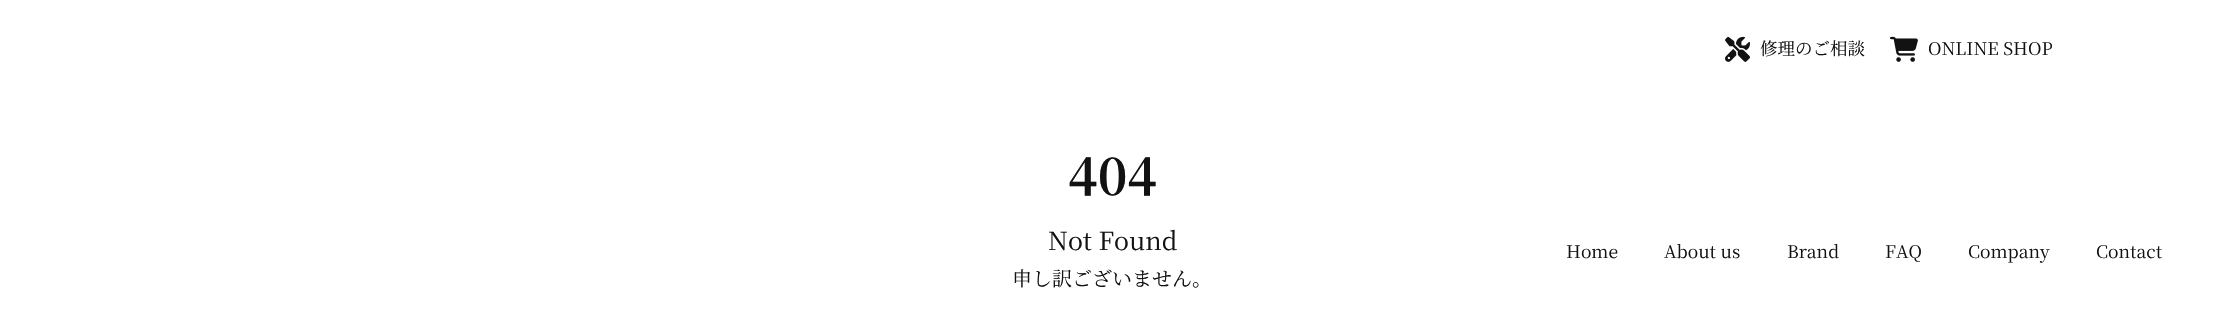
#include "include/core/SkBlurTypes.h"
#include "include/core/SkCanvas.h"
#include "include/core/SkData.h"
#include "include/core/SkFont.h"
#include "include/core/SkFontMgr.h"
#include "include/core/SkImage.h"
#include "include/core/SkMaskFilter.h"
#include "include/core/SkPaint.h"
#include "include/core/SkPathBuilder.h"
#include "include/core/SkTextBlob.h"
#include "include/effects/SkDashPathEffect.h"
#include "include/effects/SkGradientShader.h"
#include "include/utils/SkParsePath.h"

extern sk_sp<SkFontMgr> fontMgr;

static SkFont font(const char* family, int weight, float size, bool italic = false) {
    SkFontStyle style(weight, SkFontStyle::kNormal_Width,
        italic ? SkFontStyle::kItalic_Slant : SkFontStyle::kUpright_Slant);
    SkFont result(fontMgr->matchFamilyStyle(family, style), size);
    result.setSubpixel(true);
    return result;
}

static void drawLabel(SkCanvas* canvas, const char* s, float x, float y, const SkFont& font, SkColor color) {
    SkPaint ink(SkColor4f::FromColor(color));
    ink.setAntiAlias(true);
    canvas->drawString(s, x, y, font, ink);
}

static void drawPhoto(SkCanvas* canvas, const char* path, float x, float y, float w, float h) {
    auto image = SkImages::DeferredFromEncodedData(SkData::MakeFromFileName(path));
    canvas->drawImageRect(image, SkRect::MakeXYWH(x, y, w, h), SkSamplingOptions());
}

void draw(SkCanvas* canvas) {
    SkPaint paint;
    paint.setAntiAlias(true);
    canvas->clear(0xFFFFFFFF);
    SkFont font1 = font("Noto Serif JP", 700, 50);
    drawLabel(canvas, "404", 1068, 195, font1, 0xFF121212);
    SkFont font2 = font("Noto Serif JP", 400, 25);
    drawLabel(canvas, "Not Found", 1048, 250, font2, 0xFF121212);
    SkFont font3 = font("Noto Serif JP", 400, 20);
    drawLabel(canvas, "申し訳ございません。", 1012, 286, font3, 0xFF121212);
    drawPhoto(canvas, "assets/img1.png", 1725, 36, 25, 26);
    SkFont font4 = font("Noto Serif JP", 400, 17.5f);
    drawLabel(canvas, "修理のご相談", 1760, 55, font4, 0xFF121212);
    drawPhoto(canvas, "assets/img2.png", 1890, 36, 28, 26);
    drawLabel(canvas, "ONLINE SHOP", 1928, 55, font4, 0xFF121212);
    drawLabel(canvas, "Home", 1566, 258, font4, 0xFF121212);
    drawLabel(canvas, "About us", 1664, 258, font4, 0xFF121212);
    drawLabel(canvas, "Brand", 1787, 258, font4, 0xFF121212);
    drawLabel(canvas, "FAQ", 1885, 258, font4, 0xFF121212);
    drawLabel(canvas, "Company", 1968, 258, font4, 0xFF121212);
    drawLabel(canvas, "Contact", 2096, 258, font4, 0xFF121212);
}
